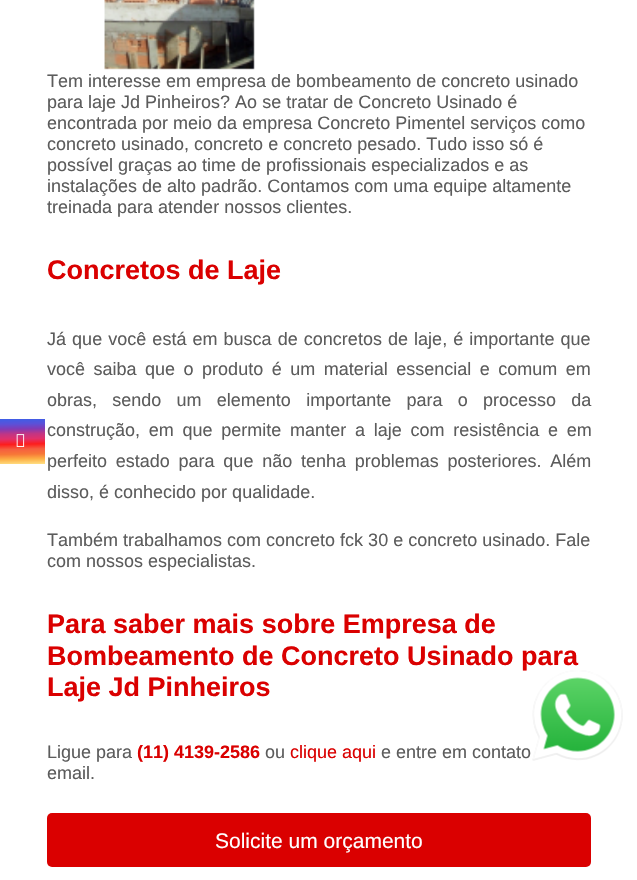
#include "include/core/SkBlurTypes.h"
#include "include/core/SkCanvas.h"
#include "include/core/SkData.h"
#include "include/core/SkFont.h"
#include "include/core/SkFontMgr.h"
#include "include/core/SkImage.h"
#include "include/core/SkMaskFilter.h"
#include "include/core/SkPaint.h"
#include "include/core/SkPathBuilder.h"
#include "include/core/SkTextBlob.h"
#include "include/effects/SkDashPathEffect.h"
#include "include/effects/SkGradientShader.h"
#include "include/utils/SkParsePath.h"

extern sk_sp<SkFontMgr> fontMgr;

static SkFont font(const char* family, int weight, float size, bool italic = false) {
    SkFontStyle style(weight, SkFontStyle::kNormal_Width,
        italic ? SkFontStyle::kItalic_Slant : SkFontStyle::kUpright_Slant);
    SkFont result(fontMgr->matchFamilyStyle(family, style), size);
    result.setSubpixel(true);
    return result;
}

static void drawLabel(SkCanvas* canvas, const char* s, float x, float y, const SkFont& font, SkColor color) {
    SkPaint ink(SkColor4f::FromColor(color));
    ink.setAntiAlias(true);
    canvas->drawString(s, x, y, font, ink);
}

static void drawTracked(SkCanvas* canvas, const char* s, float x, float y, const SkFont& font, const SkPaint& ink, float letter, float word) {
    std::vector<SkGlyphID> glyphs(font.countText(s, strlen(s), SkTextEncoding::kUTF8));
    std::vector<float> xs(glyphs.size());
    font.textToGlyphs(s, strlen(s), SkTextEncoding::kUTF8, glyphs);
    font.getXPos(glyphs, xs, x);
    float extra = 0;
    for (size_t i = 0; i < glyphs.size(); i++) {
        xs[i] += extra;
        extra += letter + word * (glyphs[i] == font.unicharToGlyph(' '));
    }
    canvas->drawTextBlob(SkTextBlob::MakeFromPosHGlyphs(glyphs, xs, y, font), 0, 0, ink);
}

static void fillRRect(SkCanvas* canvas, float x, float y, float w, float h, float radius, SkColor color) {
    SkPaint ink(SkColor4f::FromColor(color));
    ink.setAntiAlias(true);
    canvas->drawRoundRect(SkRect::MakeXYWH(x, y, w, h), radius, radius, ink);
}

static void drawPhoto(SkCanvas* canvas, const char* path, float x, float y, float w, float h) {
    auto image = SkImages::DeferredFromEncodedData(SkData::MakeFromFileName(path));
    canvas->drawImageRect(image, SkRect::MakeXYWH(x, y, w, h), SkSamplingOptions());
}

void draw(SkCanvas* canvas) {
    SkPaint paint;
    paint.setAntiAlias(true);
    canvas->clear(0xFFFFFFFF);
    drawPhoto(canvas, "assets/img1.png", 104, 0, 151, 70);
    SkFont font1 = font("Liberation Sans", 400, 18);
    drawLabel(canvas, "Tem interesse em empresa de bombeamento de concreto usinado", 47, 87, font1, 0xFF5C5C5C);
    drawLabel(canvas, "para laje Jd Pinheiros? Ao se tratar de Concreto Usinado é", 47, 108, font1, 0xFF5C5C5C);
    drawLabel(canvas, "encontrada por meio da empresa Concreto Pimentel serviços como", 47, 129, font1, 0xFF5C5C5C);
    drawLabel(canvas, "concreto usinado, concreto e concreto pesado. Tudo isso só é", 47, 150, font1, 0xFF5C5C5C);
    drawLabel(canvas, "possível graças ao time de profissionais especializados e as", 47, 171, font1, 0xFF5C5C5C);
    drawLabel(canvas, "instalações de alto padrão. Contamos com uma equipe altamente", 47, 192, font1, 0xFF5C5C5C);
    drawLabel(canvas, "treinada para atender nossos clientes.", 47, 213, font1, 0xFF5C5C5C);
    SkFont font2 = font("Liberation Sans", 700, 27);
    drawLabel(canvas, "Concretos de Laje", 47, 279, font2, 0xFFDA0000);
    paint.setColor(0xFF5C5C5C);
    drawTracked(canvas, "Já que você está em busca de concretos de laje, é importante que", 47, 345, font1, paint, 0, 1.1f);
    drawTracked(canvas, "você saiba que o produto é um material essencial e comum em", 47, 375, font1, paint, 0, 3.5f);
    drawTracked(canvas, "obras, sendo um elemento importante para o processo da", 47, 406, font1, paint, 0, 10.25f);
    drawTracked(canvas, "construção, em que permite manter a laje com resistência e em", 47, 436, font1, paint, 0, 3.75f);
    drawTracked(canvas, "perfeito estado para que não tenha problemas posteriores. Além", 47, 467, font1, paint, 0, 3.75f);
    drawLabel(canvas, "disso, é conhecido por qualidade.", 47, 498, font1, 0xFF5C5C5C);
    drawLabel(canvas, "Também trabalhamos com concreto fck 30 e concreto usinado. Fale", 47, 546, font1, 0xFF5C5C5C);
    drawLabel(canvas, "com nossos especialistas.", 47, 567, font1, 0xFF5C5C5C);
    drawLabel(canvas, "Para saber mais sobre Empresa de", 47, 633, font2, 0xFFDA0000);
    drawLabel(canvas, "Bombeamento de Concreto Usinado para", 47, 665, font2, 0xFFDA0000);
    drawLabel(canvas, "Laje Jd Pinheiros", 47, 696, font2, 0xFFDA0000);
    drawLabel(canvas, "Ligue para", 47, 758, font1, 0xFF5C5C5C);
    SkFont font3 = font("Liberation Sans", 700, 18);
    drawLabel(canvas, "(11) 4139-2586", 137, 758, font3, 0xFFDA0000);
    drawLabel(canvas, "ou", 265, 758, font1, 0xFF5C5C5C);
    drawLabel(canvas, "clique aqui", 290, 758, font1, 0xFFDA0000);
    drawLabel(canvas, "e entre em contato", 381, 758, font1, 0xFF5C5C5C);
    drawLabel(canvas, "email.", 47, 779, font1, 0xFF5C5C5C);
    fillRRect(canvas, 47, 813, 544, 54, 5, 0xFFDA0000);
    SkFont font4 = font("Liberation Sans", 400, 21);
    drawLabel(canvas, "Solicite um orçamento", 215, 848, font4, 0xFFFFFFFF);
    {
        const SkColor colors[] = {0xFF405DE6, 0xFF5B51D8, 0xFF833AB4, 0xFFC13584, 0xFFE1306C, 0xFFFD1D1D, 0xFFF56040, 0xFFF77737, 0xFFFCAF45, 0xFFFFDC80};
        const float stops[] = {0, 0.11f, 0.22f, 0.33f, 0.44f, 0.56f, 0.67f, 0.78f, 0.89f, 1};
        const SkPoint ends[] = {{22, 419}, {23, 464}};
        paint.setShader(SkGradientShader::MakeLinear(ends, colors, stops, 10, SkTileMode::kClamp));
        paint.setAlpha(255);
    }
    canvas->drawRect(SkRect::MakeXYWH(0, 419, 45, 45), paint);
    drawPhoto(canvas, "assets/img2.png", 16, 434, 9, 13);
    drawPhoto(canvas, "assets/img3.png", 532, 670, 91, 91);
}
